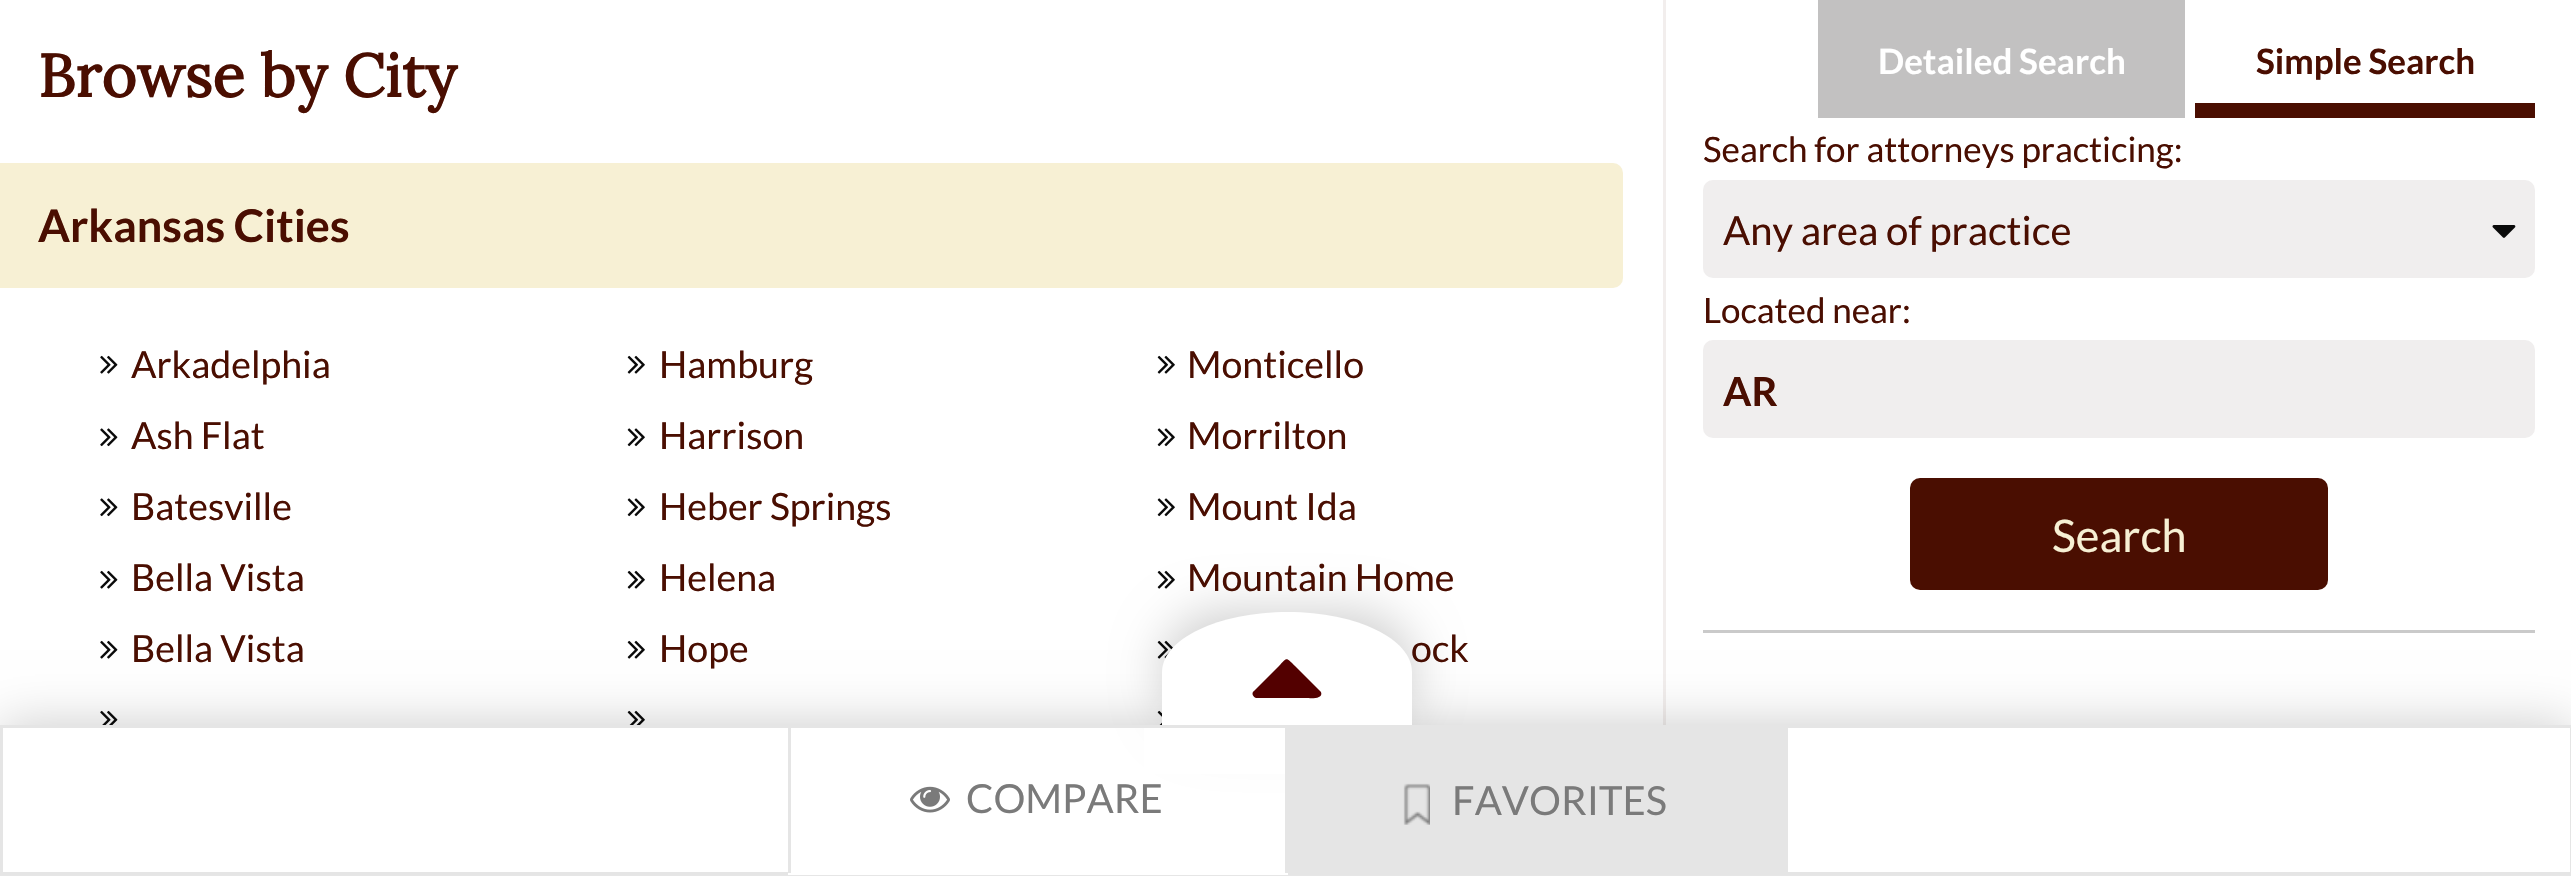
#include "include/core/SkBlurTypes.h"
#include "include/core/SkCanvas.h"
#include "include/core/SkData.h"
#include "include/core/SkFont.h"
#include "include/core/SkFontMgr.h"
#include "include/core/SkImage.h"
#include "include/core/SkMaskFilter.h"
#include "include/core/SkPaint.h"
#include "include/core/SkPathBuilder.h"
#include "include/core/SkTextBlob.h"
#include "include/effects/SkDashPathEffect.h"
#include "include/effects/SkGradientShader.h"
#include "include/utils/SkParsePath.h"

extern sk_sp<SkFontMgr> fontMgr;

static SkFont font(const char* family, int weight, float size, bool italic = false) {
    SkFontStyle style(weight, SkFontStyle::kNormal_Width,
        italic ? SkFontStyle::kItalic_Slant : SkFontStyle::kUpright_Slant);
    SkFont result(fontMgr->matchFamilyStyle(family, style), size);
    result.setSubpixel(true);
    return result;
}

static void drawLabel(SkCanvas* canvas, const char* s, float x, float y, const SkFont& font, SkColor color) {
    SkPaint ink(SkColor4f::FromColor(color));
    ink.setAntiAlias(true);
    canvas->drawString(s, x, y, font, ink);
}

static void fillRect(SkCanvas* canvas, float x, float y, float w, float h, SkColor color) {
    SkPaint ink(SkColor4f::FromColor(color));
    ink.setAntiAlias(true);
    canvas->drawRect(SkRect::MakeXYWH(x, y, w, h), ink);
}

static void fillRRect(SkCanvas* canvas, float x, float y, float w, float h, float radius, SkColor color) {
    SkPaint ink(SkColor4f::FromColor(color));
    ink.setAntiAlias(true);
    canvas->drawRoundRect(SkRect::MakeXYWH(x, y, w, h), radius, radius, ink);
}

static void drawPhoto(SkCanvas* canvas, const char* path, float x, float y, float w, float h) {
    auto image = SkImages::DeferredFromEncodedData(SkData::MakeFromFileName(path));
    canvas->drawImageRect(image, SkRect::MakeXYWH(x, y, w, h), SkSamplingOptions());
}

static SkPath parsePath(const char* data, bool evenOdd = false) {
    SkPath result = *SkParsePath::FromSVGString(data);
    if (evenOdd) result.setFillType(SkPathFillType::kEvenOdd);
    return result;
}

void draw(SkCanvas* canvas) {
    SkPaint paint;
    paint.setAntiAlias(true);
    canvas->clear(0xFFFFFFFF);
    SkFont font1 = font("Lora", 700, 60);
    drawLabel(canvas, "Browse by City", 38, 97, font1, 0xFF4A0E01);
    fillRect(canvas, 0, 163, 48, 125, 0xFFF7F0D4);
    fillRRect(canvas, 38, 163, 1585, 125, 10, 0xFFF7F0D4);
    SkFont font2 = font("Lato", 700, 45);
    drawLabel(canvas, "Arkansas Cities", 38, 242, font2, 0xFF4A0E01);
    drawPhoto(canvas, "assets/img1.png", 100, 355, 18, 19);
    SkFont font3 = font("Lato", 400, 37.5f);
    drawLabel(canvas, "Arkadelphia", 131, 378, font3, 0xFF4A0E01);
    drawPhoto(canvas, "assets/img2.png", 100, 428, 18, 19);
    drawLabel(canvas, "Ash Flat", 131, 449, font3, 0xFF4A0E01);
    drawPhoto(canvas, "assets/img2.png", 100, 498, 18, 19);
    drawLabel(canvas, "Batesville", 131, 520, font3, 0xFF4A0E01);
    drawPhoto(canvas, "assets/img1.png", 100, 570, 18, 19);
    drawLabel(canvas, "Bella Vista", 131, 591, font3, 0xFF4A0E01);
    drawPhoto(canvas, "assets/img1.png", 100, 640, 18, 19);
    drawLabel(canvas, "Bella Vista", 131, 662, font3, 0xFF4A0E01);
    drawPhoto(canvas, "assets/img3.png", 100, 710, 18, 15);
    drawPhoto(canvas, "assets/img4.png", 627, 355, 18, 19);
    drawLabel(canvas, "Hamburg", 659, 378, font3, 0xFF4A0E01);
    drawPhoto(canvas, "assets/img5.png", 627, 428, 18, 19);
    drawLabel(canvas, "Harrison", 659, 449, font3, 0xFF4A0E01);
    drawPhoto(canvas, "assets/img5.png", 627, 498, 18, 19);
    drawLabel(canvas, "Heber Springs", 659, 520, font3, 0xFF4A0E01);
    drawPhoto(canvas, "assets/img4.png", 627, 570, 18, 19);
    drawLabel(canvas, "Helena", 659, 591, font3, 0xFF4A0E01);
    drawPhoto(canvas, "assets/img4.png", 627, 640, 18, 19);
    drawLabel(canvas, "Hope", 659, 662, font3, 0xFF4A0E01);
    drawPhoto(canvas, "assets/img6.png", 627, 710, 18, 15);
    drawPhoto(canvas, "assets/img4.png", 1157, 355, 18, 19);
    drawLabel(canvas, "Monticello", 1187, 378, font3, 0xFF4A0E01);
    drawPhoto(canvas, "assets/img5.png", 1157, 428, 18, 19);
    drawLabel(canvas, "Morrilton", 1187, 449, font3, 0xFF4A0E01);
    drawPhoto(canvas, "assets/img5.png", 1157, 498, 18, 19);
    drawLabel(canvas, "Mount Ida", 1187, 520, font3, 0xFF4A0E01);
    drawPhoto(canvas, "assets/img4.png", 1157, 570, 18, 19);
    drawLabel(canvas, "Mountain Home", 1187, 591, font3, 0xFF4A0E01);
    drawPhoto(canvas, "assets/img7.png", 1157, 640, 17, 19);
    drawLabel(canvas, "ock", 1411, 662, font3, 0xFF4A0E01);
    drawPhoto(canvas, "assets/img8.png", 1157, 710, 5, 15);
    fillRect(canvas, 1663, 0, 3, 725, 0xFFF2EEED);
    fillRect(canvas, 1818, 0, 367, 118, 0xFFC2C1C1);
    SkFont font4 = font("Lato", 700, 35);
    drawLabel(canvas, "Detailed Search", 1878, 74, font4, 0xFFFFFFFF);
    fillRect(canvas, 2195, 103, 340, 15, 0xFF4A0E01);
    drawLabel(canvas, "Simple Search", 2256, 74, font4, 0xFF4A0E01);
    SkFont font5 = font("Lato", 400, 35);
    drawLabel(canvas, "Search for attorneys practicing:", 1703, 162, font5, 0xFF4A0E01);
    fillRRect(canvas, 1703, 180, 832, 98, 10, 0xFFF0EEEE);
    SkFont font6 = font("Lato", 400, 40);
    drawLabel(canvas, "Any area of practice", 1723, 245, font6, 0xFF4A0E01);
    drawPhoto(canvas, "assets/img9.png", 2492, 225, 24, 13);
    drawLabel(canvas, "Located near:", 1703, 323, font5, 0xFF4A0E01);
    fillRRect(canvas, 1703, 340, 832, 98, 10, 0xFFF0EEEE);
    SkFont font7 = font("Lato", 700, 40);
    drawLabel(canvas, "AR", 1723, 406, font7, 0xFF4A0E01);
    fillRRect(canvas, 1910, 478, 418, 112, 10, 0xFF4A0E01);
    SkFont font8 = font("Lato", 400, 45);
    drawLabel(canvas, "Search", 2052, 552, font8, 0xFFF7F0D4);
    fillRect(canvas, 1703, 630, 832, 3, 0xFFCACACA);
    paint.setColor(0x33000000);
    paint.setMaskFilter(SkMaskFilter::MakeBlur(kNormal_SkBlurStyle, 25));
    canvas->drawRect(SkRect::MakeXYWH(0, 725, 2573, 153), paint);
    paint.setMaskFilter(nullptr);
    fillRect(canvas, 3, 728, 2567, 144, 0xFFFFFFFF);
    paint.setMaskFilter(SkMaskFilter::MakeBlur(kNormal_SkBlurStyle, 25));
    canvas->drawRoundRect(SkRect::MakeXYWH(1163, 613, 250, 120), 60, 60, paint);
    paint.setMaskFilter(nullptr);
    paint.setColor(0xFFFFFFFF);
    canvas->drawPath(parsePath("M1288 612C1357 612 1412 639 1412 672V732H1162V672C1162 639 1218 612 1288 612Z"), paint);
    paint.setColor(0xFF530000);
    canvas->drawPath(parsePath("M1320 691L1321 692C1324 700 1308 698 1307 698H1256C1253 697 1251 693 1254 691L1279 666C1287 657 1286 657 1295 666Z"), paint);
    paint.setStroke(true);
    paint.setStrokeWidth(3);
    paint.setColor(0xFFE5E5E5);
    canvas->drawRect(SkRect::MakeXYWH(1.5f, 726.5f, 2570, 147), paint);
    paint.setStroke(false);
    paint.setColor(0xFFFFFFFF);
    canvas->drawPath(parsePath("M788 872V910H1288V765V872Z"), paint);
    fillRect(canvas, 1144, 728, 141, 46, 0xFFFFFFFF);
    fillRect(canvas, 1285, 728, 3, 145, 0xFFE5E5E5);
    fillRect(canvas, 788, 728, 3, 145, 0xFFE5E5E5);
    drawPhoto(canvas, "assets/img10.png", 910, 786, 40, 27);
    drawLabel(canvas, "COMPARE", 966, 813, font6, 0xFF7A7A7A);
    fillRect(canvas, 1288, 728, 500, 144, 0xFFE5E5E5);
    drawPhoto(canvas, "assets/img11.png", 1403, 783, 27, 42);
    drawLabel(canvas, "FAVORITES", 1452, 815, font6, 0xFF7A7A7A);
    fillRect(canvas, 0, 875, 2571, 1, 0xFFE6E6E6);
}
